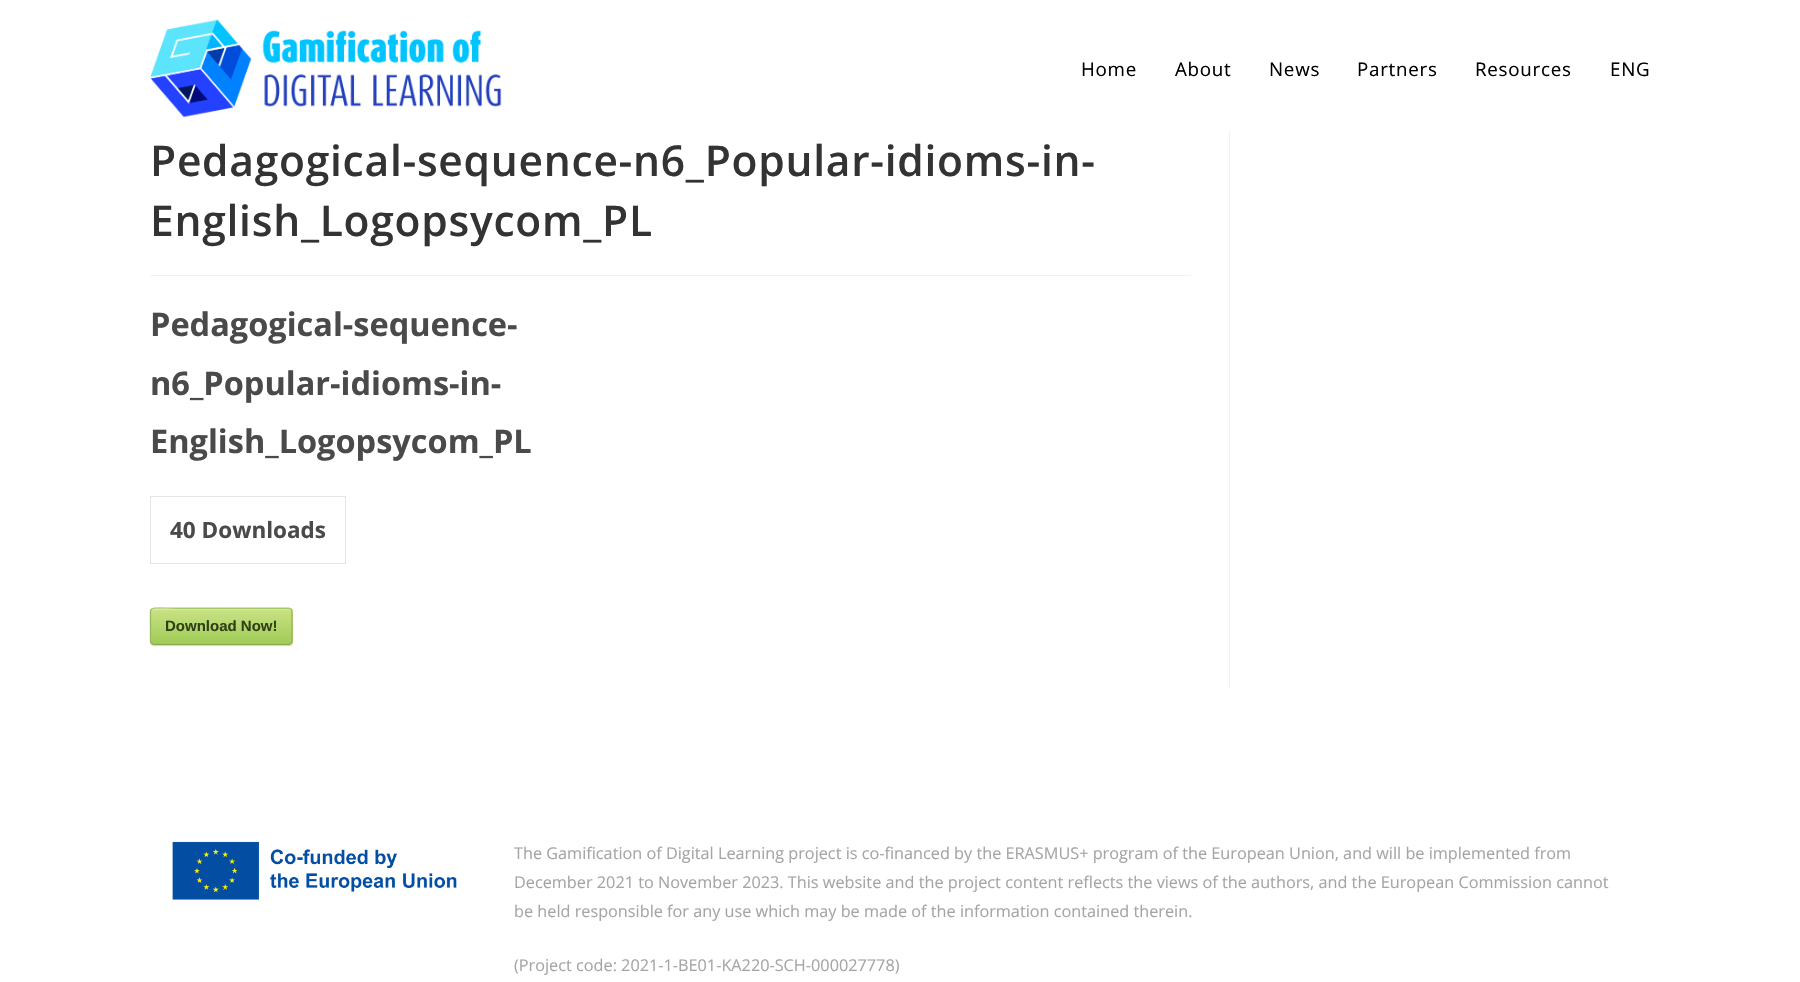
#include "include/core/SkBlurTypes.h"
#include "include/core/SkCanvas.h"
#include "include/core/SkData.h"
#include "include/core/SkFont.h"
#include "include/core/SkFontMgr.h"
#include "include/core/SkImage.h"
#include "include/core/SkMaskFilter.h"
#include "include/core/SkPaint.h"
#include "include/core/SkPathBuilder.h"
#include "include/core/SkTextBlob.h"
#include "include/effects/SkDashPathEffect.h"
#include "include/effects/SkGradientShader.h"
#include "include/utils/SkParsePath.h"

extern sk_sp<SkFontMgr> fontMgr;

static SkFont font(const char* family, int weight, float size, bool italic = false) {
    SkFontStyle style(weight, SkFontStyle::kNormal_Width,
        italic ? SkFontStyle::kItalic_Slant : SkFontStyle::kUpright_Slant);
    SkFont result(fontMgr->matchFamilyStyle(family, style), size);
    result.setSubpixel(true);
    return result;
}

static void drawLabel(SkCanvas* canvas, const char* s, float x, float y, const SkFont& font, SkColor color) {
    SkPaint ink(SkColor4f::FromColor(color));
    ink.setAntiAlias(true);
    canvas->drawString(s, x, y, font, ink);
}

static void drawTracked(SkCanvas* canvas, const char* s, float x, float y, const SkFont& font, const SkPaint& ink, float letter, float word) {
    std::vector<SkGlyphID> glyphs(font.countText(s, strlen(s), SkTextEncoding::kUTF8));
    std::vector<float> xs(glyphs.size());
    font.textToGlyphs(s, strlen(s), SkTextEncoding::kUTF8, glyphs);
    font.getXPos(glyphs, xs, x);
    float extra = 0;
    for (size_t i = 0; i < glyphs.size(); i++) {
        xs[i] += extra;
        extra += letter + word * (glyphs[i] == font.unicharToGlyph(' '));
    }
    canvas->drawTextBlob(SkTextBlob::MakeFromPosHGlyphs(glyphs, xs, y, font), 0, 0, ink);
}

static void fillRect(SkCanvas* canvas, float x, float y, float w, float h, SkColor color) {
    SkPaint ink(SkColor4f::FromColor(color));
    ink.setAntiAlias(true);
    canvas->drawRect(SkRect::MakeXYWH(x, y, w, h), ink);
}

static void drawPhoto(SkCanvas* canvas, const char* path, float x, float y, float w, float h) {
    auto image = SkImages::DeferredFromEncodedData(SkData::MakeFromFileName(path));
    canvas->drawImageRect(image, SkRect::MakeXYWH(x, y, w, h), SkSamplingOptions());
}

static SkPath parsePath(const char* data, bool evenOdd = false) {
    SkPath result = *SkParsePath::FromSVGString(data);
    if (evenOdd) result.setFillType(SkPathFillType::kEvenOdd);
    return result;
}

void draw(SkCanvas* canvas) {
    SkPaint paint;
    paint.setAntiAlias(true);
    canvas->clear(0xFFFFFFFF);
    drawPhoto(canvas, "assets/img1.png", 150, 19, 352, 99);
    SkFont font1 = font("Open Sans", 400, 18.75f);
    paint.setColor(0xFF000000);
    drawTracked(canvas, "Home", 1081, 76, font1, paint, 0.75f, 0);
    drawTracked(canvas, "About", 1175, 76, font1, paint, 0.75f, 0);
    drawTracked(canvas, "News", 1269, 76, font1, paint, 0.75f, 0);
    drawTracked(canvas, "Partners", 1357, 76, font1, paint, 0.75f, 0);
    drawTracked(canvas, "Resources", 1475, 76, font1, paint, 0.75f, 0);
    drawTracked(canvas, "ENG", 1610, 76, font1, paint, 0.75f, 0);
    fillRect(canvas, 1229, 131, 1, 558, 0xFFF1F1F1);
    fillRect(canvas, 150, 275, 1041, 1, 0xFFF1F1F1);
    SkFont font2 = font("Open Sans", 600, 42.5f);
    paint.setColor(0xFF333333);
    drawTracked(canvas, "Pedagogical-sequence-n6_Popular-idioms-in-", 150, 176, font2, paint, 0.75f, 0);
    drawTracked(canvas, "English_Logopsycom_PL", 150, 236, font2, paint, 0.75f, 0);
    SkFont font3 = font("Open Sans", 700, 32.5f);
    drawLabel(canvas, "Pedagogical-sequence-", 150, 336, font3, 0xFF4A4A4A);
    drawLabel(canvas, "n6_Popular-idioms-in-", 150, 395, font3, 0xFF4A4A4A);
    drawLabel(canvas, "English_Logopsycom_PL", 150, 453, font3, 0xFF4A4A4A);
    paint.setStroke(true);
    paint.setStrokeWidth(1);
    paint.setColor(0xFFE8E4E3);
    canvas->drawRect(SkRect::MakeXYWH(150.5f, 496.5f, 195, 67), paint);
    SkFont font4 = font("Open Sans", 700, 22.5f);
    drawLabel(canvas, "40 Downloads", 170, 538, font4, 0xFF4A4A4A);
    paint.setStroke(false);
    paint.setColor(0xFFD3D3D3);
    paint.setMaskFilter(SkMaskFilter::MakeBlur(kNormal_SkBlurStyle, 0.5f));
    canvas->drawRoundRect(SkRect::MakeXYWH(150, 609, 143, 37), 4, 4, paint);
    paint.setMaskFilter(nullptr);
    canvas->save();
    canvas->clipPath(parsePath("M154 608H289C291 608 293 610 293 612V641C293 643 291 645 289 645H154C152 645 150 643 150 641V612C150 610 152 608 154 608Z"), true);
    {
        const SkColor colors[] = {0xFFCAE285, 0xFF9FCB57};
        const float stops[] = {0, 1};
        const SkPoint ends[] = {{151, 574}, {151, 609}};
        paint.setShader(SkGradientShader::MakeLinear(ends, colors, stops, 2, SkTileMode::kClamp));
        paint.setAlpha(255);
    }
    canvas->drawRect(SkRect::MakeXYWH(150, 608, 143, 1), paint);
    {
        const SkColor colors[] = {0xFFCAE285, 0xFF9FCB57};
        const float stops[] = {0, 1};
        const SkPoint ends[] = {{151, 609}, {151, 644}};
        paint.setShader(SkGradientShader::MakeLinear(ends, colors, stops, 2, SkTileMode::kClamp));
        paint.setAlpha(255);
    }
    canvas->drawRect(SkRect::MakeXYWH(150, 609, 143, 35), paint);
    {
        const SkColor colors[] = {0xFFCAE285, 0xFF9FCB57};
        const float stops[] = {0, 1};
        const SkPoint ends[] = {{151, 644}, {151, 679}};
        paint.setShader(SkGradientShader::MakeLinear(ends, colors, stops, 2, SkTileMode::kClamp));
        paint.setAlpha(255);
    }
    canvas->drawRect(SkRect::MakeXYWH(150, 644, 143, 1), paint);
    canvas->restore();
    paint.setShader(nullptr);
    paint.setColor(0xFFD7E9A4);
    canvas->drawPath(parsePath("M154 610H289C290 610 291 611 291 612L290 610L288 609H176C173 609 151 604 151 612C151 611 152 610 154 610Z"), paint);
    paint.setStroke(true);
    paint.setStrokeWidth(1.2f);
    paint.setColor(0xFFADC671);
    canvas->drawPath(parsePath("M151.5 609L154 608H289L291 609"), paint);
    paint.setColor(0xFF98B65B);
    canvas->drawPath(parsePath("M291 609C291.5 609.5 292 610.5 292 611V641C292 642 291.5 643 291 643.5"), paint);
    paint.setColor(0xFF87AA4A);
    canvas->drawPath(parsePath("M291 643.5L289 644.5H154L151.5 643.5"), paint);
    paint.setColor(0xFF98B65B);
    canvas->drawPath(parsePath("M151.5 643.5C151 643 150.5 642 150.5 641V611C150.5 610.5 151 609.5 151.5 609"), paint);
    SkFont font5 = font("Liberation Sans", 700, 15);
    drawLabel(canvas, "Download Now!", 165, 631, font5, 0xFF2F4014);
    drawPhoto(canvas, "assets/img2.png", 172, 841, 285, 59);
    SkFont font6 = font("Open Sans", 400, 16.25f);
    drawLabel(canvas, "The Gamification of Digital Learning project is co-financed by the ERASMUS+ program of the European Union, and will be implemented from", 514, 859, font6, 0xFFA5A5A5);
    drawLabel(canvas, "December 2021 to November 2023. This website and the project content reflects the views of the authors, and the European Commission cannot", 514, 888, font6, 0xFFA5A5A5);
    drawLabel(canvas, "be held responsible for any use which may be made of the information contained therein.", 514, 917, font6, 0xFFA5A5A5);
    drawLabel(canvas, "(Project code: 2021-1-BE01-KA220-SCH-000027778)", 514, 971, font6, 0xFFA5A5A5);
}
